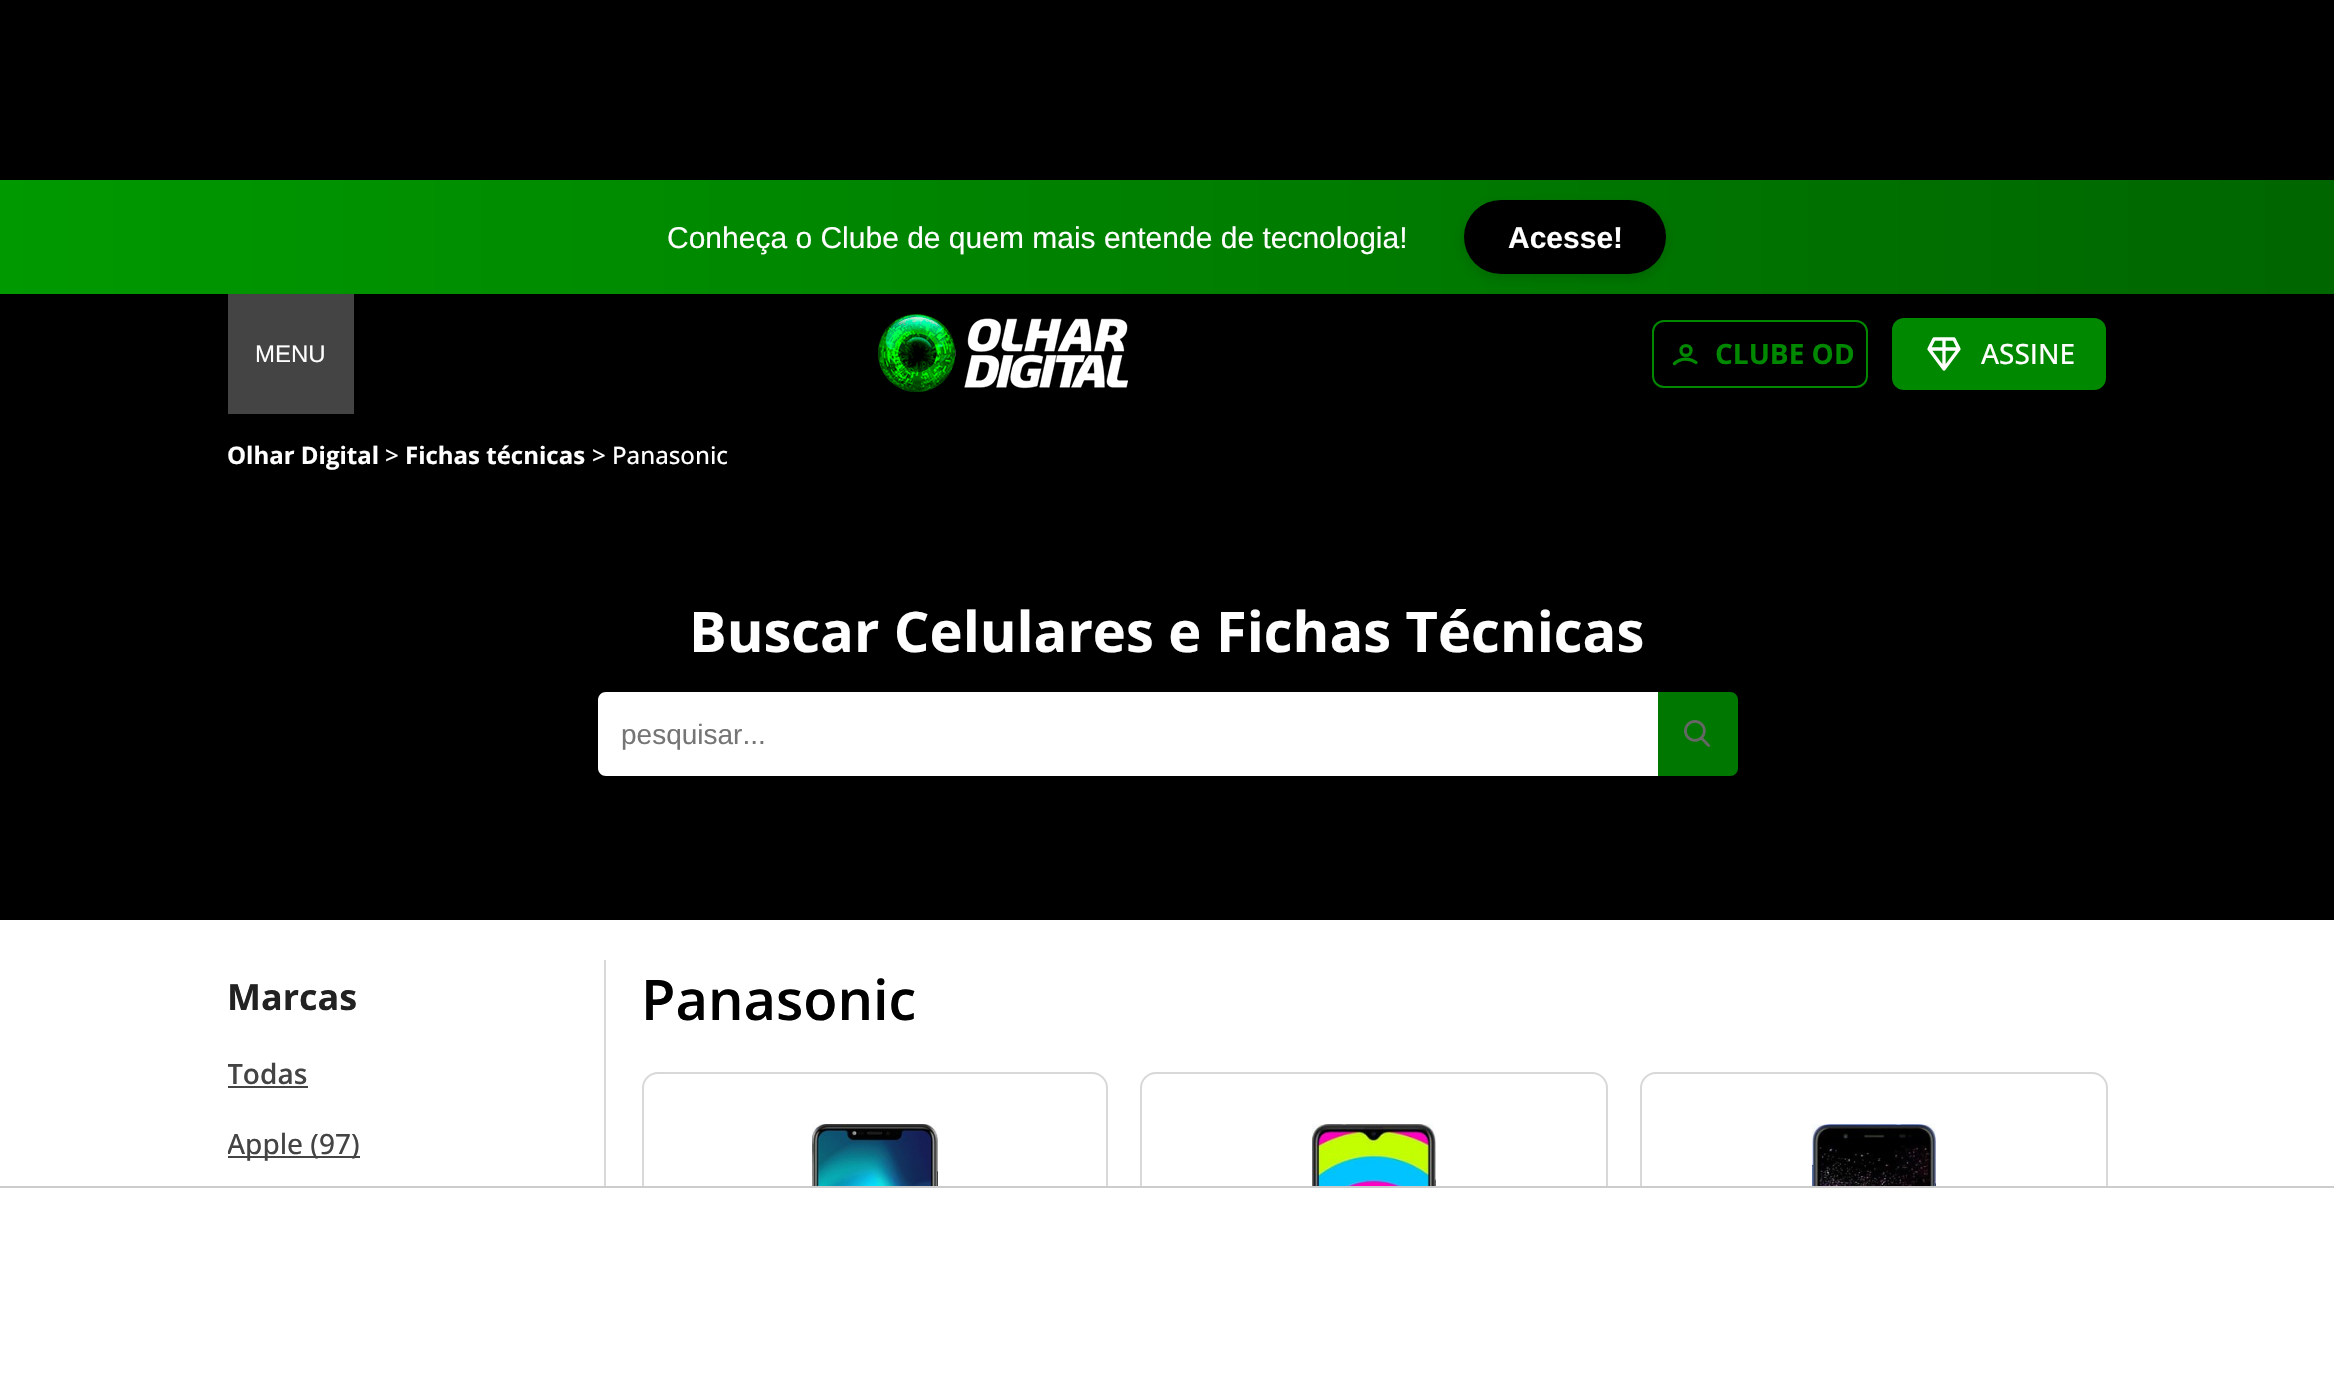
#include "include/core/SkBlurTypes.h"
#include "include/core/SkCanvas.h"
#include "include/core/SkData.h"
#include "include/core/SkFont.h"
#include "include/core/SkFontMgr.h"
#include "include/core/SkImage.h"
#include "include/core/SkMaskFilter.h"
#include "include/core/SkPaint.h"
#include "include/core/SkPathBuilder.h"
#include "include/core/SkTextBlob.h"
#include "include/effects/SkDashPathEffect.h"
#include "include/effects/SkGradientShader.h"
#include "include/utils/SkParsePath.h"

extern sk_sp<SkFontMgr> fontMgr;

static SkFont font(const char* family, int weight, float size, bool italic = false) {
    SkFontStyle style(weight, SkFontStyle::kNormal_Width,
        italic ? SkFontStyle::kItalic_Slant : SkFontStyle::kUpright_Slant);
    SkFont result(fontMgr->matchFamilyStyle(family, style), size);
    result.setSubpixel(true);
    return result;
}

static void drawLabel(SkCanvas* canvas, const char* s, float x, float y, const SkFont& font, SkColor color) {
    SkPaint ink(SkColor4f::FromColor(color));
    ink.setAntiAlias(true);
    canvas->drawString(s, x, y, font, ink);
}

static void fillRect(SkCanvas* canvas, float x, float y, float w, float h, SkColor color) {
    SkPaint ink(SkColor4f::FromColor(color));
    ink.setAntiAlias(true);
    canvas->drawRect(SkRect::MakeXYWH(x, y, w, h), ink);
}

static void fillRRect(SkCanvas* canvas, float x, float y, float w, float h, float radius, SkColor color) {
    SkPaint ink(SkColor4f::FromColor(color));
    ink.setAntiAlias(true);
    canvas->drawRoundRect(SkRect::MakeXYWH(x, y, w, h), radius, radius, ink);
}

static void drawPhoto(SkCanvas* canvas, const char* path, float x, float y, float w, float h) {
    auto image = SkImages::DeferredFromEncodedData(SkData::MakeFromFileName(path));
    canvas->drawImageRect(image, SkRect::MakeXYWH(x, y, w, h), SkSamplingOptions());
}

static SkPath parsePath(const char* data, bool evenOdd = false) {
    SkPath result = *SkParsePath::FromSVGString(data);
    if (evenOdd) result.setFillType(SkPathFillType::kEvenOdd);
    return result;
}

void draw(SkCanvas* canvas) {
    SkPaint paint;
    paint.setAntiAlias(true);
    canvas->clear(0xFFFFFFFF);
    fillRect(canvas, 0, 0, 2334, 180, 0xFF000000);
    {
        const SkColor colors[] = {0xFF009900, 0xFF006600};
        const float stops[] = {0, 1};
        const SkPoint ends[] = {{0, 237}, {2334, 237}};
        paint.setShader(SkGradientShader::MakeLinear(ends, colors, stops, 2, SkTileMode::kClamp));
        paint.setAlpha(255);
    }
    canvas->drawRect(SkRect::MakeXYWH(0, 180, 2334, 114), paint);
    SkFont font1 = font("Liberation Sans", 400, 30);
    drawLabel(canvas, "Conheça o Clube de quem mais entende de tecnologia!", 667, 248, font1, 0xFFFFFFFF);
    paint.setShader(nullptr);
    paint.setColor(0x26000000);
    paint.setMaskFilter(SkMaskFilter::MakeBlur(kNormal_SkBlurStyle, 6));
    canvas->drawRoundRect(SkRect::MakeXYWH(1464, 204, 202, 74), 37, 37, paint);
    paint.setMaskFilter(nullptr);
    fillRRect(canvas, 1464, 200, 202, 74, 37, 0xFF000000);
    SkFont font2 = font("Liberation Sans", 700, 30);
    drawLabel(canvas, "Acesse!", 1508, 248, font2, 0xFFFFFFFF);
    fillRect(canvas, 0, 294, 2334, 120, 0xFF000000);
    fillRect(canvas, 228, 294, 126, 120, 0xFF444444);
    SkFont font3 = font("Liberation Sans", 400, 24);
    drawLabel(canvas, "MENU", 255, 362, font3, 0xFFFFFFFF);
    drawPhoto(canvas, "assets/img1.png", 878, 314, 250, 78);
    paint.setStroke(true);
    paint.setStrokeWidth(2);
    paint.setColor(0xFF008800);
    canvas->drawRoundRect(SkRect::MakeXYWH(1653, 321, 214, 66), 11, 11, paint);
    paint.setStrokeWidth(3.3f);
    paint.setStrokeCap(SkPaint::kRound_Cap);
    paint.setStrokeJoin(SkPaint::kRound_Join);
    canvas->drawPath(parsePath("M1674.5 363.5C1680 358 1689.5 357.5 1696 362.5M1691 350.5C1691 357 1681 357 1681 350.5C1681 344 1691 344 1691 350.5Z"), paint);
    SkFont font4 = font("Open Sans", 700, 28);
    drawLabel(canvas, "CLUBE OD", 1715, 364, font4, 0xFF008800);
    fillRRect(canvas, 1892, 318, 214, 72, 12, 0xFF008800);
    paint.setColor(0xFFFFFFFF);
    canvas->drawPath(parsePath("M1934 339H1954L1959 349L1944 369L1929 349ZM1929 349H1959M1944 339V369"), paint);
    SkFont font5 = font("Open Sans", 500, 28);
    drawLabel(canvas, "ASSINE", 1981, 364, font5, 0xFFFFFFFF);
    fillRect(canvas, 0, 414, 2334, 506, 0xFF000000);
    SkFont font6 = font("Open Sans", 700, 24);
    drawLabel(canvas, "Olhar Digital", 227, 464, font6, 0xFFFFFFFF);
    SkFont font7 = font("Open Sans", 500, 24);
    drawLabel(canvas, ">", 385, 464, font7, 0xFFFFFFFF);
    drawLabel(canvas, "Fichas técnicas", 405, 464, font6, 0xFFFFFFFF);
    drawLabel(canvas, "> Panasonic", 592, 464, font7, 0xFFFFFFFF);
    SkFont font8 = font("Open Sans", 700, 56);
    drawLabel(canvas, "Buscar Celulares e Fichas Técnicas", 689, 652, font8, 0xFFFFFFFF);
    paint.setStroke(false);
    canvas->drawPath(parsePath("M606 692H1658V776H606C601.5 776 598 772.5 598 768V700C598 695.5 601.5 692 606 692Z"), paint);
    SkFont font9 = font("Liberation Sans", 400, 28);
    drawLabel(canvas, "pesquisar...", 621, 744, font9, 0xFF757575);
    paint.setColor(0xFF007700);
    canvas->drawPath(parsePath("M1658 692H1730C1734.5 692 1738 695.5 1738 700V768C1738 772.5 1734.5 776 1730 776H1658Z"), paint);
    drawPhoto(canvas, "assets/img2.png", 1684, 720, 26, 27);
    SkFont font10 = font("Open Sans", 700, 36);
    drawLabel(canvas, "Marcas", 227, 1010, font10, 0xFF222222);
    canvas->save();
    canvas->clipRect(SkRect::MakeXYWH(228, 1054, 340, 38));
    SkFont font11 = font("Open Sans", 600, 28);
    drawLabel(canvas, "Todas", 227, 1084, font11, 0xFF444444);
    canvas->restore();
    fillRect(canvas, 228, 1086, 80, 2, 0xFF444444);
    fillRect(canvas, 228, 1156, 132, 2, 0xFF444444);
    canvas->save();
    canvas->clipRect(SkRect::MakeXYWH(228, 1124, 340, 38));
    drawLabel(canvas, "Apple (97)", 227, 1154, font5, 0xFF444444);
    canvas->restore();
    fillRect(canvas, 604, 960, 2, 226, 0xFFD8D8D8);
    SkFont font12 = font("Open Sans", 600, 56);
    drawLabel(canvas, "Panasonic", 641, 1020, font12, 0xFF000000);
    paint.setStroke(true);
    paint.setStrokeWidth(2);
    paint.setStrokeCap(SkPaint::kButt_Cap);
    paint.setStrokeJoin(SkPaint::kMiter_Join);
    paint.setColor(0xFFD8D8D8);
    canvas->drawRoundRect(SkRect::MakeXYWH(643, 1073, 464, 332), 15, 15, paint);
    drawPhoto(canvas, "assets/img3.png", 812, 1124, 126, 62);
    canvas->drawRoundRect(SkRect::MakeXYWH(1141, 1073, 466, 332), 15, 15, paint);
    drawPhoto(canvas, "assets/img4.png", 1312, 1124, 124, 62);
    canvas->drawRoundRect(SkRect::MakeXYWH(1641, 1073, 466, 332), 15, 15, paint);
    drawPhoto(canvas, "assets/img5.png", 1812, 1124, 124, 62);
    fillRect(canvas, 642, 1188, 1466, 200, 0xFFFFFFFF);
    fillRect(canvas, 0, 1186, 2334, 2, 0xFFCCCCCC);
}
